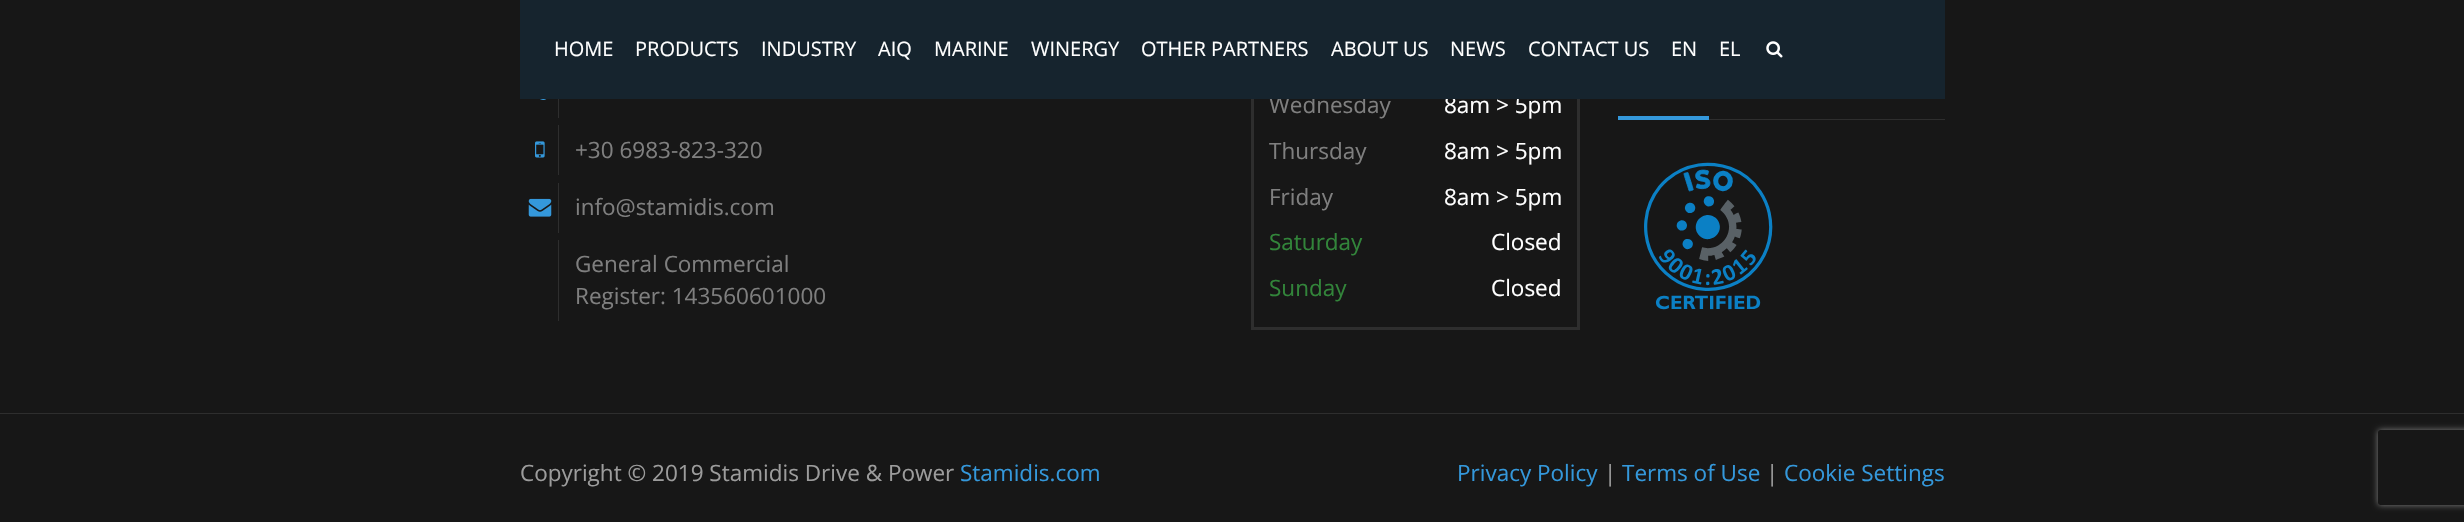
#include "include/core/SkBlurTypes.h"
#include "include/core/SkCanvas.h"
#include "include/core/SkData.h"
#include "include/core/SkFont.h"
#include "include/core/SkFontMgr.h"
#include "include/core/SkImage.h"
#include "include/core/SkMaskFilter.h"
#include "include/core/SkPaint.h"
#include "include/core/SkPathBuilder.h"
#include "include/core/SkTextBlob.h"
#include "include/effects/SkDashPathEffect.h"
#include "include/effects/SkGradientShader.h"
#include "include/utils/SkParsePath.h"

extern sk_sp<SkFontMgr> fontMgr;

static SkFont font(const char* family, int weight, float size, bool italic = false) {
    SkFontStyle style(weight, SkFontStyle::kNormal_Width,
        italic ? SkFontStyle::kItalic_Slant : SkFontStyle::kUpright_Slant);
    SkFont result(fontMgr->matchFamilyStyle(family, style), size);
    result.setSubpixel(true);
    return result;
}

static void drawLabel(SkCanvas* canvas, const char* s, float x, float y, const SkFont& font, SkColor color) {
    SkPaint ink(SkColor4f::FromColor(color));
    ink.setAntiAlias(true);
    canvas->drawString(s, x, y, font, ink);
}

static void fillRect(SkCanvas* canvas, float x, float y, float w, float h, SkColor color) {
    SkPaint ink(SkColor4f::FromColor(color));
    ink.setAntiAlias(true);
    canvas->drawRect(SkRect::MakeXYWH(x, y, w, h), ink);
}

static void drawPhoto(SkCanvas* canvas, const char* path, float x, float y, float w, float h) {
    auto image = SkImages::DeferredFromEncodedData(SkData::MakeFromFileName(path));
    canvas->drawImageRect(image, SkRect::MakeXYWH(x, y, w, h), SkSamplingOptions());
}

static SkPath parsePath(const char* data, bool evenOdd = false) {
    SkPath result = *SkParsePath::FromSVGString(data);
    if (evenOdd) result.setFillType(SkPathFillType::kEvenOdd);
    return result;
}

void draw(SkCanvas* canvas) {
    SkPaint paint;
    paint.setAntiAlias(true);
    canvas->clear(0xFF171717);
    paint.setStroke(true);
    paint.setStrokeWidth(3);
    paint.setColor(0xFF2E2E2E);
    canvas->drawRect(SkRect::MakeXYWH(1252.5f, -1.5f, 326, 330), paint);
    SkFont font1 = font("Open Sans", 400, 22.5f);
    drawLabel(canvas, "Wednesday", 1269, 113, font1, 0xFF7F7F7F);
    drawLabel(canvas, "8am > 5pm", 1444, 113, font1, 0xFFFFFFFF);
    fillRect(canvas, 520, 0, 1425, 99, 0xFF16242E);
    SkFont font2 = font("Open Sans", 400, 20);
    drawLabel(canvas, "HOME", 554, 56, font2, 0xFFFFFFFF);
    drawLabel(canvas, "PRODUCTS", 635, 56, font2, 0xFFFFFFFF);
    drawLabel(canvas, "INDUSTRY", 761, 56, font2, 0xFFFFFFFF);
    drawLabel(canvas, "AIQ", 878, 56, font2, 0xFFFFFFFF);
    drawLabel(canvas, "MARINE", 934, 56, font2, 0xFFFFFFFF);
    drawLabel(canvas, "WINERGY", 1031, 56, font2, 0xFFFFFFFF);
    drawLabel(canvas, "OTHER PARTNERS", 1141, 56, font2, 0xFFFFFFFF);
    drawLabel(canvas, "ABOUT US", 1331, 56, font2, 0xFFFFFFFF);
    drawLabel(canvas, "NEWS", 1450, 56, font2, 0xFFFFFFFF);
    drawLabel(canvas, "CONTACT US", 1528, 56, font2, 0xFFFFFFFF);
    drawLabel(canvas, "EN", 1671, 56, font2, 0xFFFFFFFF);
    drawLabel(canvas, "EL", 1719, 56, font2, 0xFFFFFFFF);
    drawPhoto(canvas, "assets/img1.png", 1766, 41, 17, 17);
    drawPhoto(canvas, "assets/img2.png", 540, 99, 7, 1);
    fillRect(canvas, 558, 99, 1, 19, 0xFF2E2E2E);
    drawPhoto(canvas, "assets/img3.png", 535, 141, 10, 17);
    fillRect(canvas, 558, 125, 1, 50, 0xFF2E2E2E);
    drawLabel(canvas, "+30 6983-823-320", 575, 158, font1, 0xFF7F7F7F);
    drawPhoto(canvas, "assets/img4.png", 528, 198, 24, 19);
    fillRect(canvas, 558, 183, 1, 50, 0xFF2E2E2E);
    drawLabel(canvas, "info@stamidis.com", 575, 215, font1, 0xFF7F7F7F);
    fillRect(canvas, 558, 240, 1, 81, 0xFF2E2E2E);
    drawLabel(canvas, "General Commercial", 575, 272, font1, 0xFF7F7F7F);
    drawLabel(canvas, "Register: 143560601000", 575, 304, font1, 0xFF7F7F7F);
    drawLabel(canvas, "Thursday", 1269, 159, font1, 0xFF7F7F7F);
    drawLabel(canvas, "8am > 5pm", 1444, 159, font1, 0xFFFFFFFF);
    drawLabel(canvas, "Friday", 1269, 205, font1, 0xFF7F7F7F);
    drawLabel(canvas, "8am > 5pm", 1444, 205, font1, 0xFFFFFFFF);
    drawLabel(canvas, "Saturday", 1269, 250, font1, 0xFF32853A);
    drawLabel(canvas, "Closed", 1491, 250, font1, 0xFFFFFFFF);
    drawLabel(canvas, "Sunday", 1269, 296, font1, 0xFF32853A);
    drawLabel(canvas, "Closed", 1491, 296, font1, 0xFFFFFFFF);
    fillRect(canvas, 1709, 119, 236, 1, 0xFF2E2E2E);
    fillRect(canvas, 1618, 116, 91, 4, 0xFF3498DB);
    drawPhoto(canvas, "assets/img5.png", 1644, 162, 129, 148);
    fillRect(canvas, 0, 413, 2464, 1, 0xFF2E2E2E);
    drawLabel(canvas, "Copyright © 2019 Stamidis Drive & Power", 520, 481, font1, 0xFF9C9C9C);
    drawLabel(canvas, "Stamidis.com", 960, 481, font1, 0xFF3498DB);
    drawLabel(canvas, "Privacy Policy", 1457, 481, font1, 0xFF3498DB);
    drawLabel(canvas, "|", 1604, 481, font1, 0xFF9C9C9C);
    drawLabel(canvas, "Terms of Use", 1622, 481, font1, 0xFF3498DB);
    drawLabel(canvas, "|", 1766, 481, font1, 0xFF9C9C9C);
    drawLabel(canvas, "Cookie Settings", 1784, 481, font1, 0xFF3498DB);
    canvas->save();
    canvas->clipPath(parsePath("M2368 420H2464V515H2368ZM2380.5 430H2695.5C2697 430 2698 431 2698 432.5V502.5C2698 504 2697 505 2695.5 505H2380.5C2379 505 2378 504 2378 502.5V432.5C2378 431 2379 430 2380.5 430Z", true), true);
    paint.setStroke(false);
    paint.setColor(0xFF808080);
    paint.setMaskFilter(SkMaskFilter::MakeBlur(kNormal_SkBlurStyle, 3));
    canvas->drawRoundRect(SkRect::MakeXYWH(2378, 430, 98, 75), 2.5f, 2.5f, paint);
    paint.setMaskFilter(nullptr);
    canvas->restore();
}
